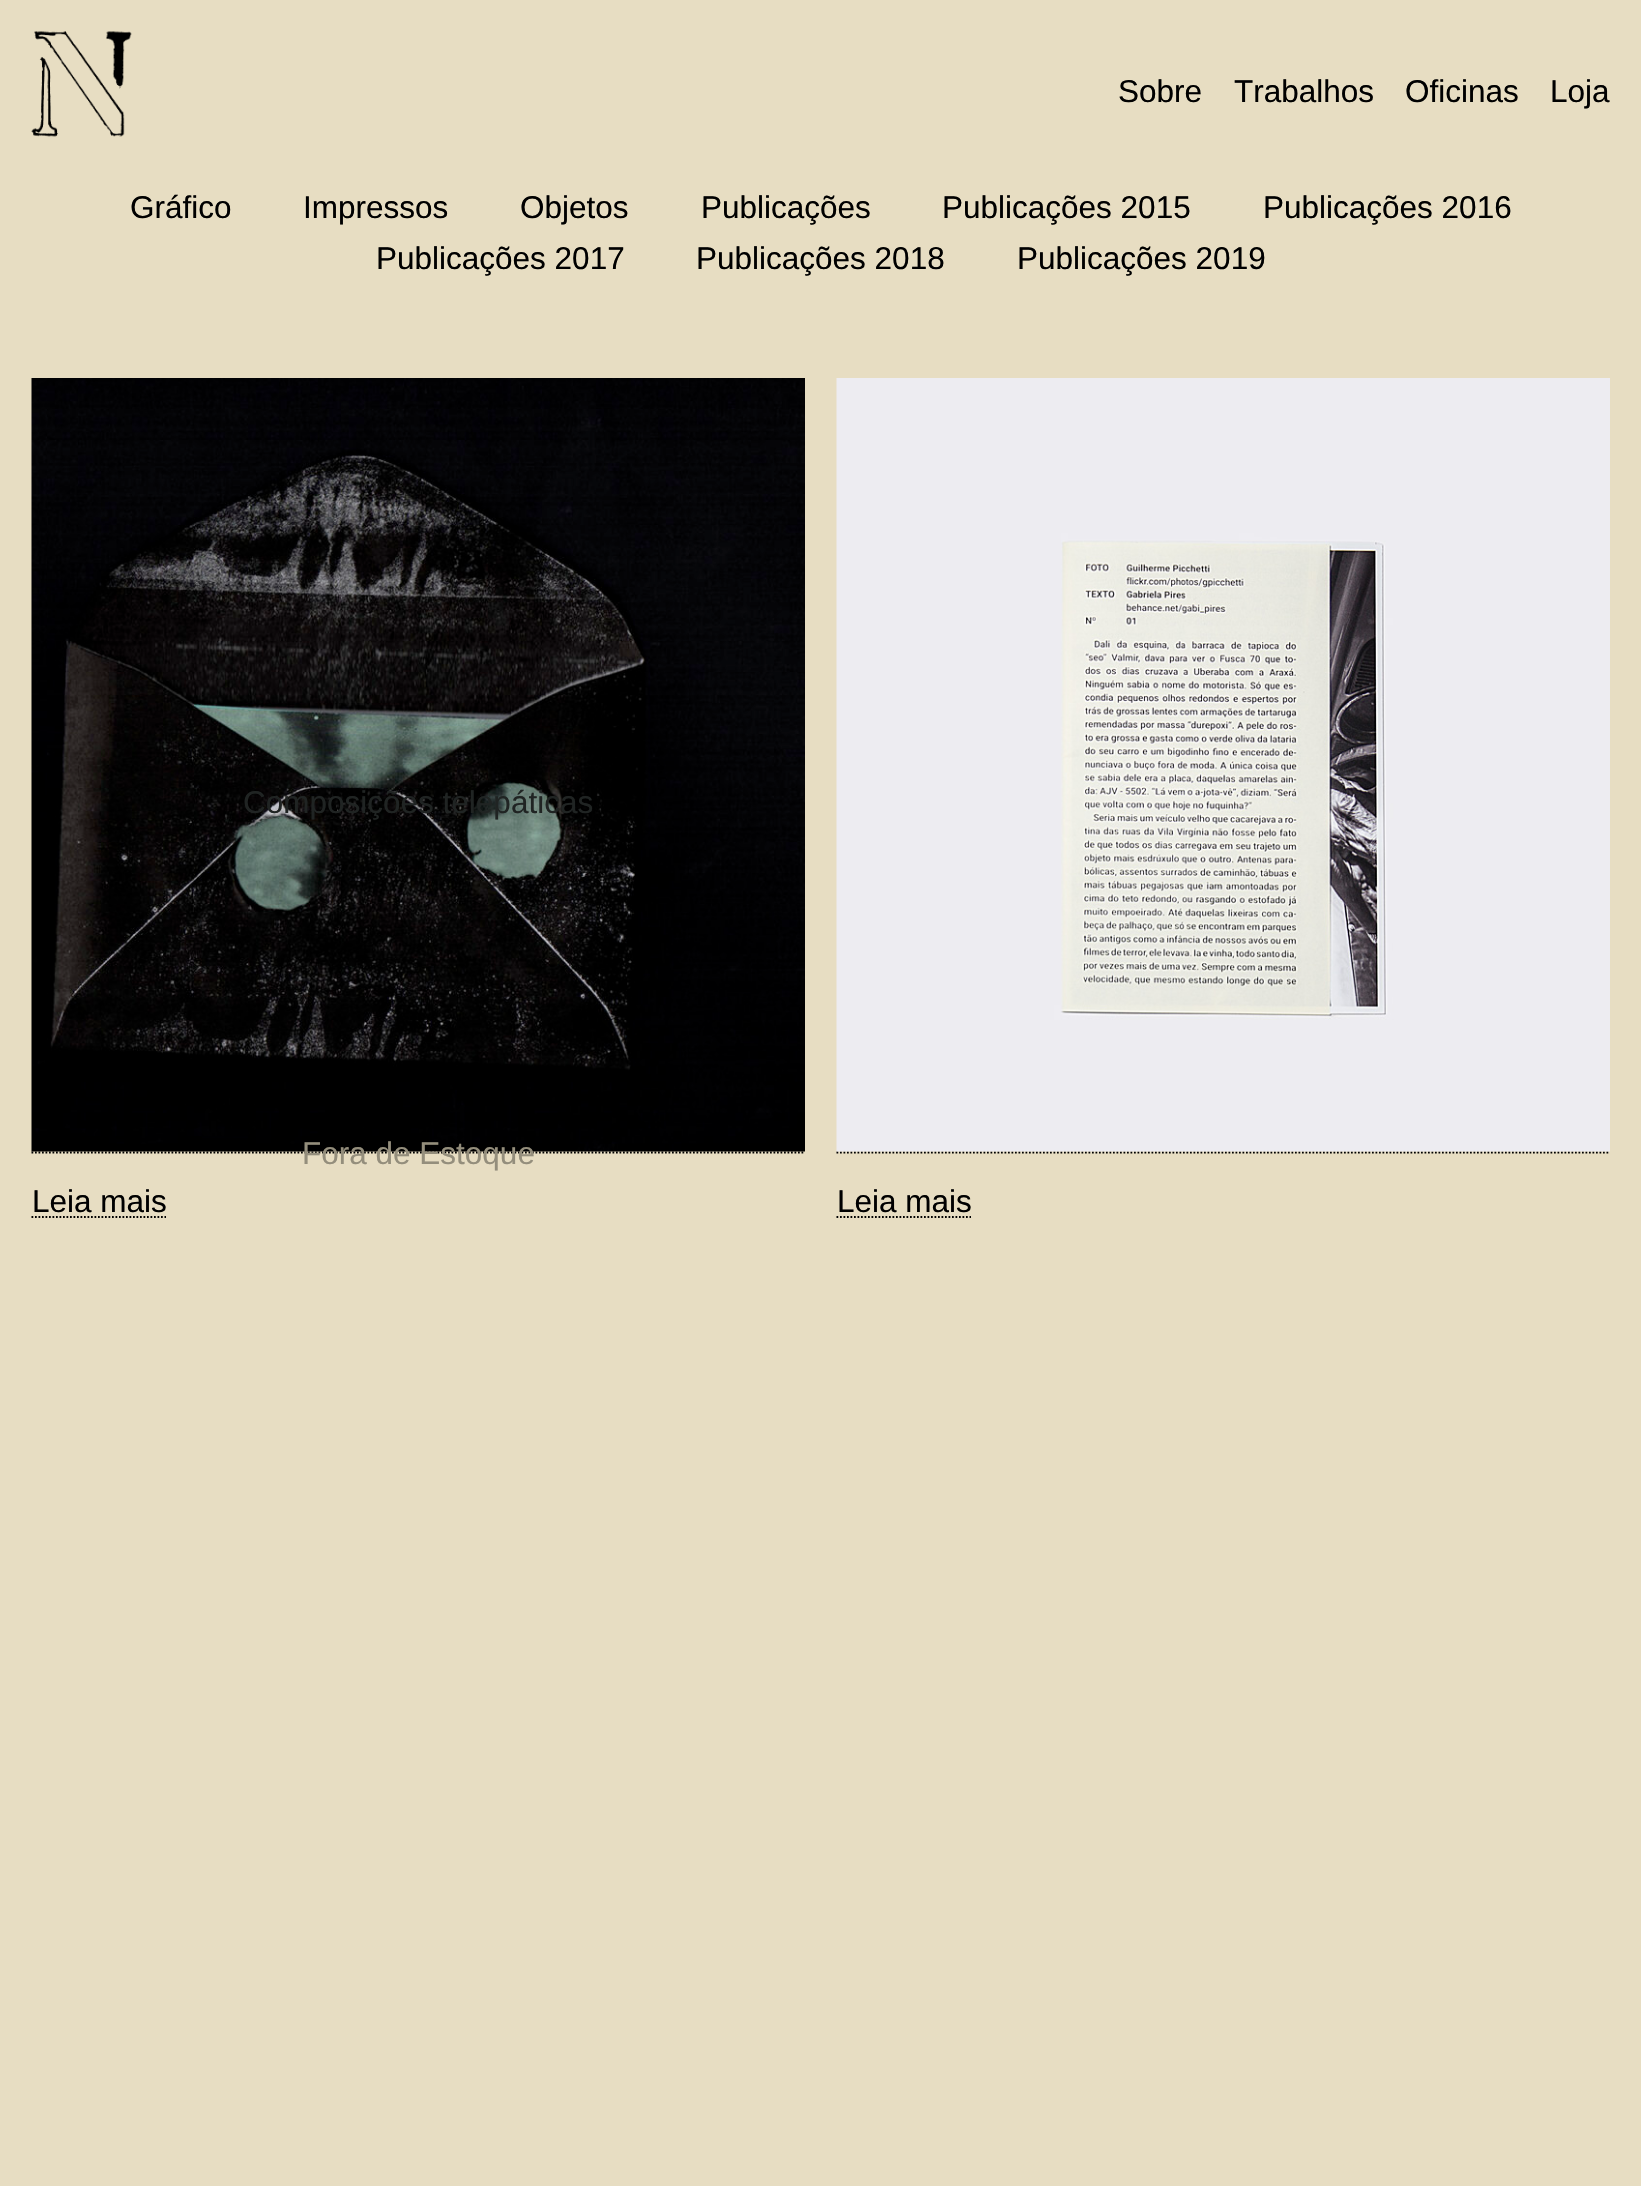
#include "include/core/SkBlurTypes.h"
#include "include/core/SkCanvas.h"
#include "include/core/SkData.h"
#include "include/core/SkFont.h"
#include "include/core/SkFontMgr.h"
#include "include/core/SkImage.h"
#include "include/core/SkMaskFilter.h"
#include "include/core/SkPaint.h"
#include "include/core/SkPathBuilder.h"
#include "include/core/SkTextBlob.h"
#include "include/effects/SkDashPathEffect.h"
#include "include/effects/SkGradientShader.h"
#include "include/utils/SkParsePath.h"

extern sk_sp<SkFontMgr> fontMgr;

static SkFont font(const char* family, int weight, float size, bool italic = false) {
    SkFontStyle style(weight, SkFontStyle::kNormal_Width,
        italic ? SkFontStyle::kItalic_Slant : SkFontStyle::kUpright_Slant);
    SkFont result(fontMgr->matchFamilyStyle(family, style), size);
    result.setSubpixel(true);
    return result;
}

static void drawLabel(SkCanvas* canvas, const char* s, float x, float y, const SkFont& font, SkColor color) {
    SkPaint ink(SkColor4f::FromColor(color));
    ink.setAntiAlias(true);
    canvas->drawString(s, x, y, font, ink);
}

static void drawPhoto(SkCanvas* canvas, const char* path, float x, float y, float w, float h) {
    auto image = SkImages::DeferredFromEncodedData(SkData::MakeFromFileName(path));
    canvas->drawImageRect(image, SkRect::MakeXYWH(x, y, w, h), SkSamplingOptions());
}

static SkPath parsePath(const char* data, bool evenOdd = false) {
    SkPath result = *SkParsePath::FromSVGString(data);
    if (evenOdd) result.setFillType(SkPathFillType::kEvenOdd);
    return result;
}

void draw(SkCanvas* canvas) {
    SkPaint paint;
    paint.setAntiAlias(true);
    canvas->clear(0xFFE7DDC2);
    drawPhoto(canvas, "assets/img1.png", 31, 31, 101, 106);
    SkFont font1 = font("Liberation Sans", 400, 31.5f);
    drawLabel(canvas, "Sobre", 1118, 102, font1, 0xFF000000);
    drawLabel(canvas, "Trabalhos", 1234, 102, font1, 0xFF000000);
    drawLabel(canvas, "Oficinas", 1405, 102, font1, 0xFF000000);
    drawLabel(canvas, "Loja", 1550, 102, font1, 0xFF000000);
    drawLabel(canvas, "Gráfico", 130, 218, font1, 0xFF000000);
    drawLabel(canvas, "Impressos", 303, 218, font1, 0xFF000000);
    drawLabel(canvas, "Objetos", 520, 218, font1, 0xFF000000);
    drawLabel(canvas, "Publicações", 701, 218, font1, 0xFF000000);
    drawLabel(canvas, "Publicações 2015", 942, 218, font1, 0xFF000000);
    drawLabel(canvas, "Publicações 2016", 1263, 218, font1, 0xFF000000);
    drawLabel(canvas, "Publicações 2017", 376, 269, font1, 0xFF000000);
    drawLabel(canvas, "Publicações 2018", 696, 269, font1, 0xFF000000);
    drawLabel(canvas, "Publicações 2019", 1017, 269, font1, 0xFF000000);
    paint.setStroke(true);
    paint.setStrokeWidth(1.8f);
    paint.setColor(0xFF000000);
    paint.setPathEffect(SkDashPathEffect::Make({{1.75f, 1.75f}}, 0));
    canvas->drawPath(parsePath("M31.5 1152.5H805"), paint);
    paint.setPathEffect(nullptr);
    drawPhoto(canvas, "assets/img2.png", 31, 378, 774, 774);
    drawLabel(canvas, "Composições telepáticas", 243, 813, font1, 0xFF202423);
    drawLabel(canvas, "Fora de Estoque", 302, 1164, font1, 0xFF948E7C);
    paint.setPathEffect(SkDashPathEffect::Make({{1.75f, 1.75f}}, 0));
    canvas->drawPath(parsePath("M31.5 1217H166"), paint);
    paint.setPathEffect(nullptr);
    drawLabel(canvas, "Leia mais", 32, 1212, font1, 0xFF000000);
    paint.setPathEffect(SkDashPathEffect::Make({{1.75f, 1.75f}}, 0));
    canvas->drawPath(parsePath("M836.5 1152.5H1610"), paint);
    paint.setPathEffect(nullptr);
    drawPhoto(canvas, "assets/img3.png", 836, 378, 774, 774);
    paint.setPathEffect(SkDashPathEffect::Make({{1.75f, 1.75f}}, 0));
    canvas->drawPath(parsePath("M836.5 1217H971"), paint);
    paint.setPathEffect(nullptr);
    drawLabel(canvas, "Leia mais", 837, 1212, font1, 0xFF000000);
}
